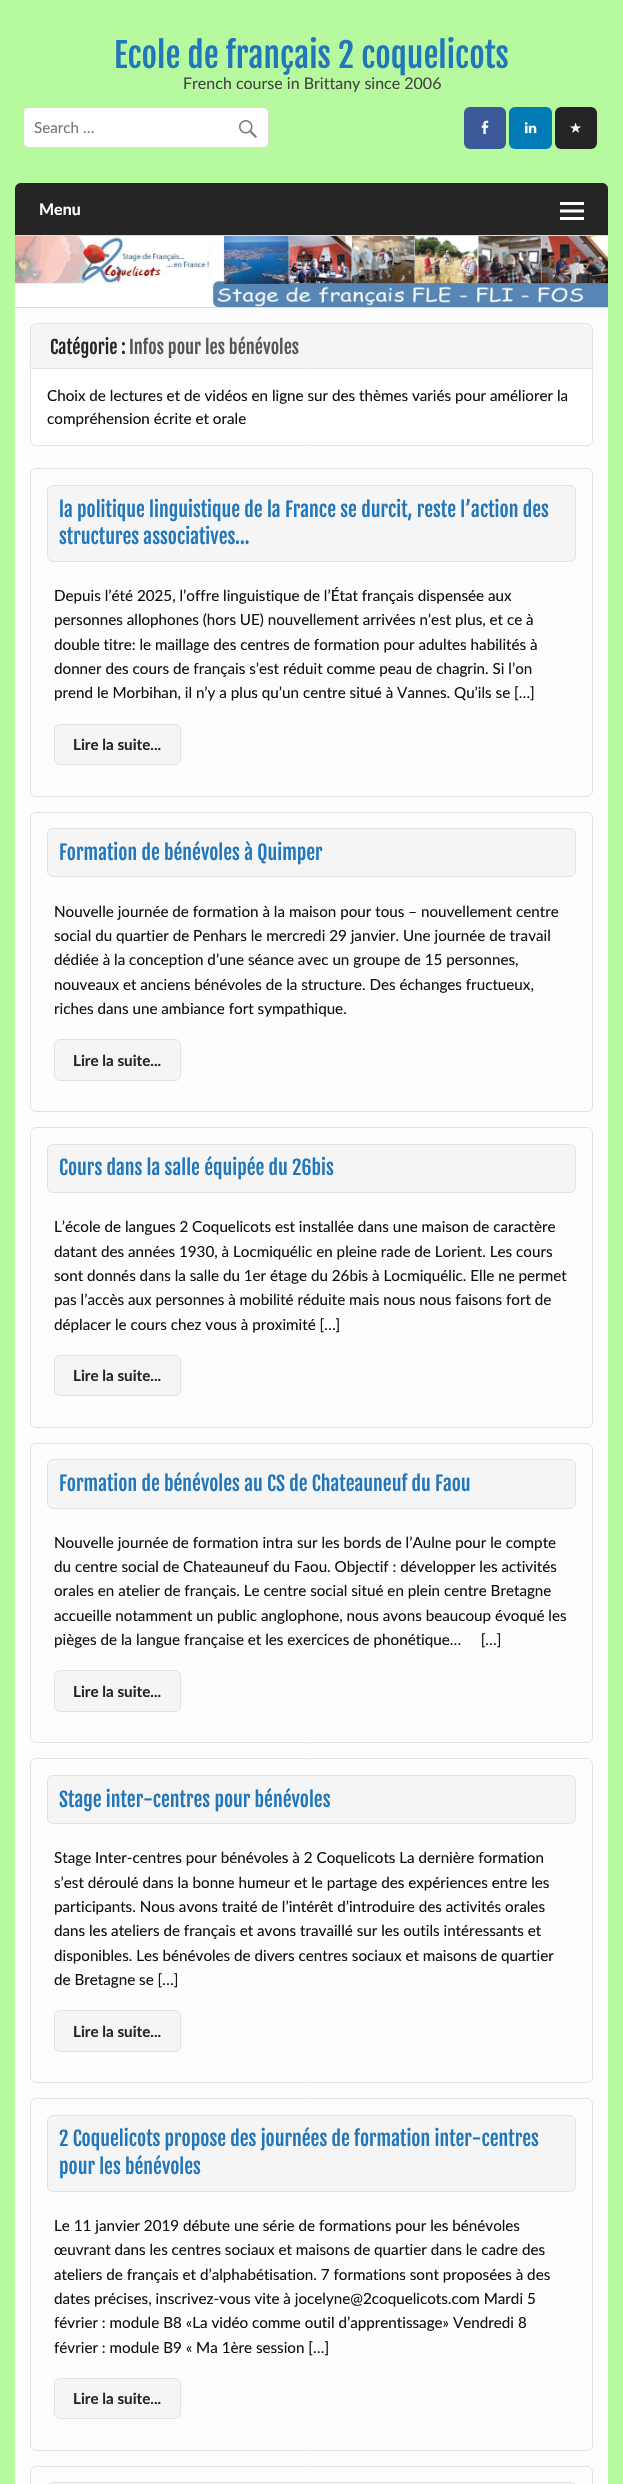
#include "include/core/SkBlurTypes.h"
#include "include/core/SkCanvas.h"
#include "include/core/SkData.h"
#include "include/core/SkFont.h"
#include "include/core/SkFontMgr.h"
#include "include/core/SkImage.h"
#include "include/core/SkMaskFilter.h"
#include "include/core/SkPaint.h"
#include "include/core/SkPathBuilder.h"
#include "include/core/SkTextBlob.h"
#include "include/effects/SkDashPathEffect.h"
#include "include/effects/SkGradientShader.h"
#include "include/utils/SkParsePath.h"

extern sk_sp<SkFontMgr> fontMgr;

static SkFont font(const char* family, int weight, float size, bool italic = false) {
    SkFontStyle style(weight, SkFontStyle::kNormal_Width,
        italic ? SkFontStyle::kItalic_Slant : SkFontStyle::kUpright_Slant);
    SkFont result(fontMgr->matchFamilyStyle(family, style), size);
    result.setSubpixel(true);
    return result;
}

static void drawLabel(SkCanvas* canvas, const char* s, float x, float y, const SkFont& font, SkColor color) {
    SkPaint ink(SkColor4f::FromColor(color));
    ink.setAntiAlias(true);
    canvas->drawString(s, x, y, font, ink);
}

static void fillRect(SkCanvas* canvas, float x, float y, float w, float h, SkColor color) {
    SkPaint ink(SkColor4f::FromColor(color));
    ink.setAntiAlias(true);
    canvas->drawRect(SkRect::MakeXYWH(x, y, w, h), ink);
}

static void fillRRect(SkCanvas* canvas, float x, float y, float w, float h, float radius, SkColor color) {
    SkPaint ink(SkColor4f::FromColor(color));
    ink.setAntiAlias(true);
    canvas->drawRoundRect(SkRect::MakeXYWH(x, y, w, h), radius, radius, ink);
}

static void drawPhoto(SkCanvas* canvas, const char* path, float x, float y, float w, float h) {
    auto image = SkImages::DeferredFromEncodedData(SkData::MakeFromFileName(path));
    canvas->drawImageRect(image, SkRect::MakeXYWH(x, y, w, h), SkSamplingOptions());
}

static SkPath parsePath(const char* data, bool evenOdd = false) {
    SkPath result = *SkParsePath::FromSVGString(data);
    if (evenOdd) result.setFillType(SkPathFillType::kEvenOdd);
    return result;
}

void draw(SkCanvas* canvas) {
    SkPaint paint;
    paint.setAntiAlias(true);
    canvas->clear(0xFFB7F99F);
    SkFont font1 = font("Fjalla One", 400, 33.5f);
    drawLabel(canvas, "Ecole de français 2 coquelicots", 114, 68, font1, 0xFF2277BB);
    SkFont font2 = font("Lato", 400, 16);
    drawLabel(canvas, "French course in Brittany since 2006", 183, 89, font2, 0xFF444444);
    paint.setColor(0xFFFFFFFF);
    canvas->drawRoundRect(SkRect::MakeXYWH(23.5f, 107.5f, 245, 40), 5.5f, 5.5f, paint);
    paint.setStroke(true);
    paint.setStrokeWidth(1);
    paint.setColor(0xFFDDDDDD);
    canvas->drawRoundRect(SkRect::MakeXYWH(23.5f, 107.5f, 245, 40), 5.5f, 5.5f, paint);
    SkFont font3 = font("Lato", 400, 15.2f);
    drawLabel(canvas, "Search …", 34, 133, font3, 0xFF757575);
    drawPhoto(canvas, "assets/img1.png", 239, 120, 18, 18);
    fillRRect(canvas, 464, 107, 42, 42, 6, 0xFF3B5998);
    drawPhoto(canvas, "assets/img2.png", 481, 120, 8, 15);
    fillRRect(canvas, 509, 107, 43, 42, 6, 0xFF007BB6);
    drawPhoto(canvas, "assets/img3.png", 524, 122, 13, 12);
    fillRRect(canvas, 555, 107, 42, 42, 6, 0xFF252525);
    drawPhoto(canvas, "assets/img4.png", 570, 122, 12, 11);
    paint.setStroke(false);
    paint.setColor(0xFF252525);
    canvas->drawPath(parsePath("M21 183H602C605.5 183 608 185.5 608 189V235H15V189C15 185.5 17.5 183 21 183Z"), paint);
    SkFont font4 = font("Lato", 700, 16);
    drawLabel(canvas, "Menu", 39, 215, font4, 0xFFFFFFFF);
    drawPhoto(canvas, "assets/img5.png", 560, 202, 24, 18);
    drawPhoto(canvas, "assets/img6.png", 15, 236, 593, 71);
    fillRect(canvas, 15, 308, 593, 2176, 0xFFFDFDFD);
    paint.setColor(0xFFF5F5F5);
    canvas->drawRoundRect(SkRect::MakeXYWH(30.5f, 323.5f, 562, 48), 6.5f, 6.5f, paint);
    paint.setStroke(true);
    paint.setColor(0xFFE2E2E2);
    canvas->drawRoundRect(SkRect::MakeXYWH(30.5f, 323.5f, 562, 48), 6.5f, 6.5f, paint);
    SkFont font5 = font("Fjalla One", 400, 18.25f);
    drawLabel(canvas, "Catégorie :", 50, 354, font5, 0xFF252525);
    drawLabel(canvas, "Infos pour les bénévoles", 129, 354, font5, 0xFF555555);
    paint.setStroke(false);
    paint.setColor(0xFFFFFFFF);
    canvas->drawPath(parsePath("M30.5 368.5H592.5V440C592.5 443 590 445.5 587 445.5H36C33 445.5 30.5 443 30.5 440Z"), paint);
    paint.setStroke(true);
    paint.setColor(0xFFE2E2E2);
    canvas->drawPath(parsePath("M30.5 368.5H592.5V440C592.5 443 590 445.5 587 445.5H36C33 445.5 30.5 443 30.5 440Z"), paint);
    drawLabel(canvas, "Choix de lectures et de vidéos en ligne sur des thèmes variés pour améliorer la", 47, 401, font3, 0xFF111111);
    drawLabel(canvas, "compréhension écrite et orale", 47, 424, font3, 0xFF111111);
    canvas->drawRoundRect(SkRect::MakeXYWH(30.5f, 468.5f, 562, 328), 5.5f, 5.5f, paint);
    paint.setStroke(false);
    paint.setColor(0xFFF5F5F5);
    canvas->drawRoundRect(SkRect::MakeXYWH(47.5f, 485.5f, 528, 76), 5.5f, 5.5f, paint);
    paint.setStroke(true);
    paint.setColor(0xFFE2E2E2);
    canvas->drawRoundRect(SkRect::MakeXYWH(47.5f, 485.5f, 528, 76), 5.5f, 5.5f, paint);
    SkFont font6 = font("Fjalla One", 400, 19.75f);
    drawLabel(canvas, "la politique linguistique de la France se durcit, reste l’action des", 59, 517, font6, 0xFF2277BB);
    drawLabel(canvas, "structures associatives…", 59, 544, font6, 0xFF2277BB);
    drawLabel(canvas, "Depuis l’été 2025, l’offre linguistique de l’État français dispensée aux", 54, 601, font3, 0xFF111111);
    drawLabel(canvas, "personnes allophones (hors UE) nouvellement arrivées n’est plus, et ce à", 54, 625, font3, 0xFF111111);
    drawLabel(canvas, "double titre: le maillage des centres de formation pour adultes habilités à", 54, 650, font3, 0xFF111111);
    drawLabel(canvas, "donner des cours de français s’est réduit comme peau de chagrin. Si l’on", 54, 674, font3, 0xFF111111);
    drawLabel(canvas, "prend le Morbihan, il n’y a plus qu’un centre situé à Vannes. Qu’ils se […]", 54, 698, font3, 0xFF111111);
    paint.setStroke(false);
    paint.setColor(0xFFF5F5F5);
    canvas->drawRoundRect(SkRect::MakeXYWH(54.5f, 724.5f, 126, 40), 5.5f, 5.5f, paint);
    paint.setStroke(true);
    paint.setColor(0xFFE2E2E2);
    canvas->drawRoundRect(SkRect::MakeXYWH(54.5f, 724.5f, 126, 40), 5.5f, 5.5f, paint);
    SkFont font7 = font("Lato", 700, 15.2f);
    drawLabel(canvas, "Lire la suite...", 73, 750, font7, 0xFF252525);
    canvas->drawRoundRect(SkRect::MakeXYWH(30.5f, 812.5f, 562, 299), 5.5f, 5.5f, paint);
    paint.setStroke(false);
    paint.setColor(0xFFF5F5F5);
    canvas->drawRoundRect(SkRect::MakeXYWH(47.5f, 828.5f, 528, 48), 5.5f, 5.5f, paint);
    paint.setStroke(true);
    paint.setColor(0xFFE2E2E2);
    canvas->drawRoundRect(SkRect::MakeXYWH(47.5f, 828.5f, 528, 48), 5.5f, 5.5f, paint);
    drawLabel(canvas, "Formation de bénévoles à Quimper", 59, 860, font6, 0xFF2277BB);
    drawLabel(canvas, "Nouvelle journée de formation à la maison pour tous – nouvellement centre", 54, 917, font3, 0xFF111111);
    drawLabel(canvas, "social du quartier de Penhars le mercredi 29 janvier. Une journée de travail", 54, 941, font3, 0xFF111111);
    drawLabel(canvas, "dédiée à la conception d’une séance avec un groupe de 15 personnes,", 54, 965, font3, 0xFF111111);
    drawLabel(canvas, "nouveaux et anciens bénévoles de la structure. Des échanges fructueux,", 54, 990, font3, 0xFF111111);
    drawLabel(canvas, "riches dans une ambiance fort sympathique.", 54, 1014, font3, 0xFF111111);
    paint.setStroke(false);
    paint.setColor(0xFFF5F5F5);
    canvas->drawRoundRect(SkRect::MakeXYWH(54.5f, 1039.5f, 126, 41), 5.5f, 5.5f, paint);
    paint.setStroke(true);
    paint.setColor(0xFFE2E2E2);
    canvas->drawRoundRect(SkRect::MakeXYWH(54.5f, 1039.5f, 126, 41), 5.5f, 5.5f, paint);
    drawLabel(canvas, "Lire la suite...", 73, 1066, font7, 0xFF252525);
    canvas->drawRoundRect(SkRect::MakeXYWH(30.5f, 1127.5f, 562, 300), 5.5f, 5.5f, paint);
    paint.setStroke(false);
    paint.setColor(0xFFF5F5F5);
    canvas->drawRoundRect(SkRect::MakeXYWH(47.5f, 1144.5f, 528, 48), 5.5f, 5.5f, paint);
    paint.setStroke(true);
    paint.setColor(0xFFE2E2E2);
    canvas->drawRoundRect(SkRect::MakeXYWH(47.5f, 1144.5f, 528, 48), 5.5f, 5.5f, paint);
    drawLabel(canvas, "Cours dans la salle équipée du 26bis", 59, 1175, font6, 0xFF2277BB);
    drawLabel(canvas, "L’école de langues 2 Coquelicots est installée dans une maison de caractère", 54, 1232, font3, 0xFF111111);
    drawLabel(canvas, "datant des années 1930, à Locmiquélic en pleine rade de Lorient. Les cours", 54, 1257, font3, 0xFF111111);
    drawLabel(canvas, "sont donnés dans la salle du 1er étage du 26bis à Locmiquélic. Elle ne permet", 54, 1281, font3, 0xFF111111);
    drawLabel(canvas, "pas l’accès aux personnes à mobilité réduite mais nous nous faisons fort de", 54, 1305, font3, 0xFF111111);
    drawLabel(canvas, "déplacer le cours chez vous à proximité […]", 54, 1330, font3, 0xFF111111);
    paint.setStroke(false);
    paint.setColor(0xFFF5F5F5);
    canvas->drawRoundRect(SkRect::MakeXYWH(54.5f, 1355.5f, 126, 40), 5.5f, 5.5f, paint);
    paint.setStroke(true);
    paint.setColor(0xFFE2E2E2);
    canvas->drawRoundRect(SkRect::MakeXYWH(54.5f, 1355.5f, 126, 40), 5.5f, 5.5f, paint);
    drawLabel(canvas, "Lire la suite...", 73, 1381, font7, 0xFF252525);
    canvas->drawRoundRect(SkRect::MakeXYWH(30.5f, 1443.5f, 562, 299), 5.5f, 5.5f, paint);
    paint.setStroke(false);
    paint.setColor(0xFFF5F5F5);
    canvas->drawRoundRect(SkRect::MakeXYWH(47.5f, 1459.5f, 528, 49), 5.5f, 5.5f, paint);
    paint.setStroke(true);
    paint.setColor(0xFFE2E2E2);
    canvas->drawRoundRect(SkRect::MakeXYWH(47.5f, 1459.5f, 528, 49), 5.5f, 5.5f, paint);
    drawLabel(canvas, "Formation de bénévoles au CS de Chateauneuf du Faou", 59, 1491, font6, 0xFF2277BB);
    drawLabel(canvas, "Nouvelle journée de formation intra sur les bords de l’Aulne pour le compte", 54, 1548, font3, 0xFF111111);
    drawLabel(canvas, "du centre social de Chateauneuf du Faou. Objectif : développer les activités", 54, 1572, font3, 0xFF111111);
    drawLabel(canvas, "orales en atelier de français. Le centre social situé en plein centre Bretagne", 54, 1596, font3, 0xFF111111);
    drawLabel(canvas, "accueille notamment un public anglophone, nous avons beaucoup évoqué les", 54, 1621, font3, 0xFF111111);
    drawLabel(canvas, "pièges de la langue française et les exercices de phonétique…     […]", 54, 1645, font3, 0xFF111111);
    paint.setStroke(false);
    paint.setColor(0xFFF5F5F5);
    canvas->drawRoundRect(SkRect::MakeXYWH(54.5f, 1670.5f, 126, 41), 5.5f, 5.5f, paint);
    paint.setStroke(true);
    paint.setColor(0xFFE2E2E2);
    canvas->drawRoundRect(SkRect::MakeXYWH(54.5f, 1670.5f, 126, 41), 5.5f, 5.5f, paint);
    drawLabel(canvas, "Lire la suite...", 73, 1697, font7, 0xFF252525);
    canvas->drawRoundRect(SkRect::MakeXYWH(30.5f, 1758.5f, 562, 324), 5.5f, 5.5f, paint);
    paint.setStroke(false);
    paint.setColor(0xFFF5F5F5);
    canvas->drawRoundRect(SkRect::MakeXYWH(47.5f, 1775.5f, 528, 48), 5.5f, 5.5f, paint);
    paint.setStroke(true);
    paint.setColor(0xFFE2E2E2);
    canvas->drawRoundRect(SkRect::MakeXYWH(47.5f, 1775.5f, 528, 48), 5.5f, 5.5f, paint);
    drawLabel(canvas, "Stage inter-centres pour bénévoles", 59, 1807, font6, 0xFF2277BB);
    drawLabel(canvas, "Stage Inter-centres pour bénévoles à 2 Coquelicots La dernière formation", 54, 1863, font3, 0xFF111111);
    drawLabel(canvas, "s’est déroulé dans la bonne humeur et le partage des expériences entre les", 54, 1888, font3, 0xFF111111);
    drawLabel(canvas, "participants. Nous avons traité de l’intérêt d’introduire des activités orales", 54, 1912, font3, 0xFF111111);
    drawLabel(canvas, "dans les ateliers de français et avons travaillé sur les outils intéressants et", 54, 1936, font3, 0xFF111111);
    drawLabel(canvas, "disponibles. Les bénévoles de divers centres sociaux et maisons de quartier", 54, 1961, font3, 0xFF111111);
    drawLabel(canvas, "de Bretagne se […]", 54, 1985, font3, 0xFF111111);
    paint.setStroke(false);
    paint.setColor(0xFFF5F5F5);
    canvas->drawRoundRect(SkRect::MakeXYWH(54.5f, 2010.5f, 126, 41), 5.5f, 5.5f, paint);
    paint.setStroke(true);
    paint.setColor(0xFFE2E2E2);
    canvas->drawRoundRect(SkRect::MakeXYWH(54.5f, 2010.5f, 126, 41), 5.5f, 5.5f, paint);
    drawLabel(canvas, "Lire la suite...", 73, 2037, font7, 0xFF252525);
    canvas->drawRoundRect(SkRect::MakeXYWH(30.5f, 2098.5f, 562, 352), 5.5f, 5.5f, paint);
    paint.setStroke(false);
    paint.setColor(0xFFF5F5F5);
    canvas->drawRoundRect(SkRect::MakeXYWH(47.5f, 2115.5f, 528, 76), 5.5f, 5.5f, paint);
    paint.setStroke(true);
    paint.setColor(0xFFE2E2E2);
    canvas->drawRoundRect(SkRect::MakeXYWH(47.5f, 2115.5f, 528, 76), 5.5f, 5.5f, paint);
    drawLabel(canvas, "2 Coquelicots propose des journées de formation inter-centres", 59, 2146, font6, 0xFF2277BB);
    drawLabel(canvas, "pour les bénévoles", 59, 2174, font6, 0xFF2277BB);
    drawLabel(canvas, "Le 11 janvier 2019 débute une série de formations pour les bénévoles", 54, 2231, font3, 0xFF111111);
    drawLabel(canvas, "œuvrant dans les centres sociaux et maisons de quartier dans le cadre des", 54, 2255, font3, 0xFF111111);
    drawLabel(canvas, "ateliers de français et d’alphabétisation. 7 formations sont proposées à des", 54, 2280, font3, 0xFF111111);
    drawLabel(canvas, "dates précises, inscrivez-vous vite à jocelyne@2coquelicots.com Mardi 5", 54, 2304, font3, 0xFF111111);
    drawLabel(canvas, "février : module B8 «La vidéo comme outil d’apprentissage» Vendredi 8", 54, 2328, font3, 0xFF111111);
    drawLabel(canvas, "février : module B9 « Ma 1ère session […]", 54, 2353, font3, 0xFF111111);
    paint.setStroke(false);
    paint.setColor(0xFFF5F5F5);
    canvas->drawRoundRect(SkRect::MakeXYWH(54.5f, 2378.5f, 126, 40), 5.5f, 5.5f, paint);
    paint.setStroke(true);
    paint.setColor(0xFFE2E2E2);
    canvas->drawRoundRect(SkRect::MakeXYWH(54.5f, 2378.5f, 126, 40), 5.5f, 5.5f, paint);
    drawLabel(canvas, "Lire la suite...", 73, 2404, font7, 0xFF252525);
    canvas->drawRoundRect(SkRect::MakeXYWH(30.5f, 2466.5f, 562, 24), 5.5f, 5.5f, paint);
    paint.setStroke(false);
    paint.setColor(0xFFF5F5F5);
    canvas->drawRoundRect(SkRect::MakeXYWH(47.5f, 2482.5f, 528, 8), 5.5f, 5.5f, paint);
    paint.setStroke(true);
    paint.setColor(0xFFE2E2E2);
    canvas->drawRoundRect(SkRect::MakeXYWH(47.5f, 2482.5f, 528, 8), 5.5f, 5.5f, paint);
}
